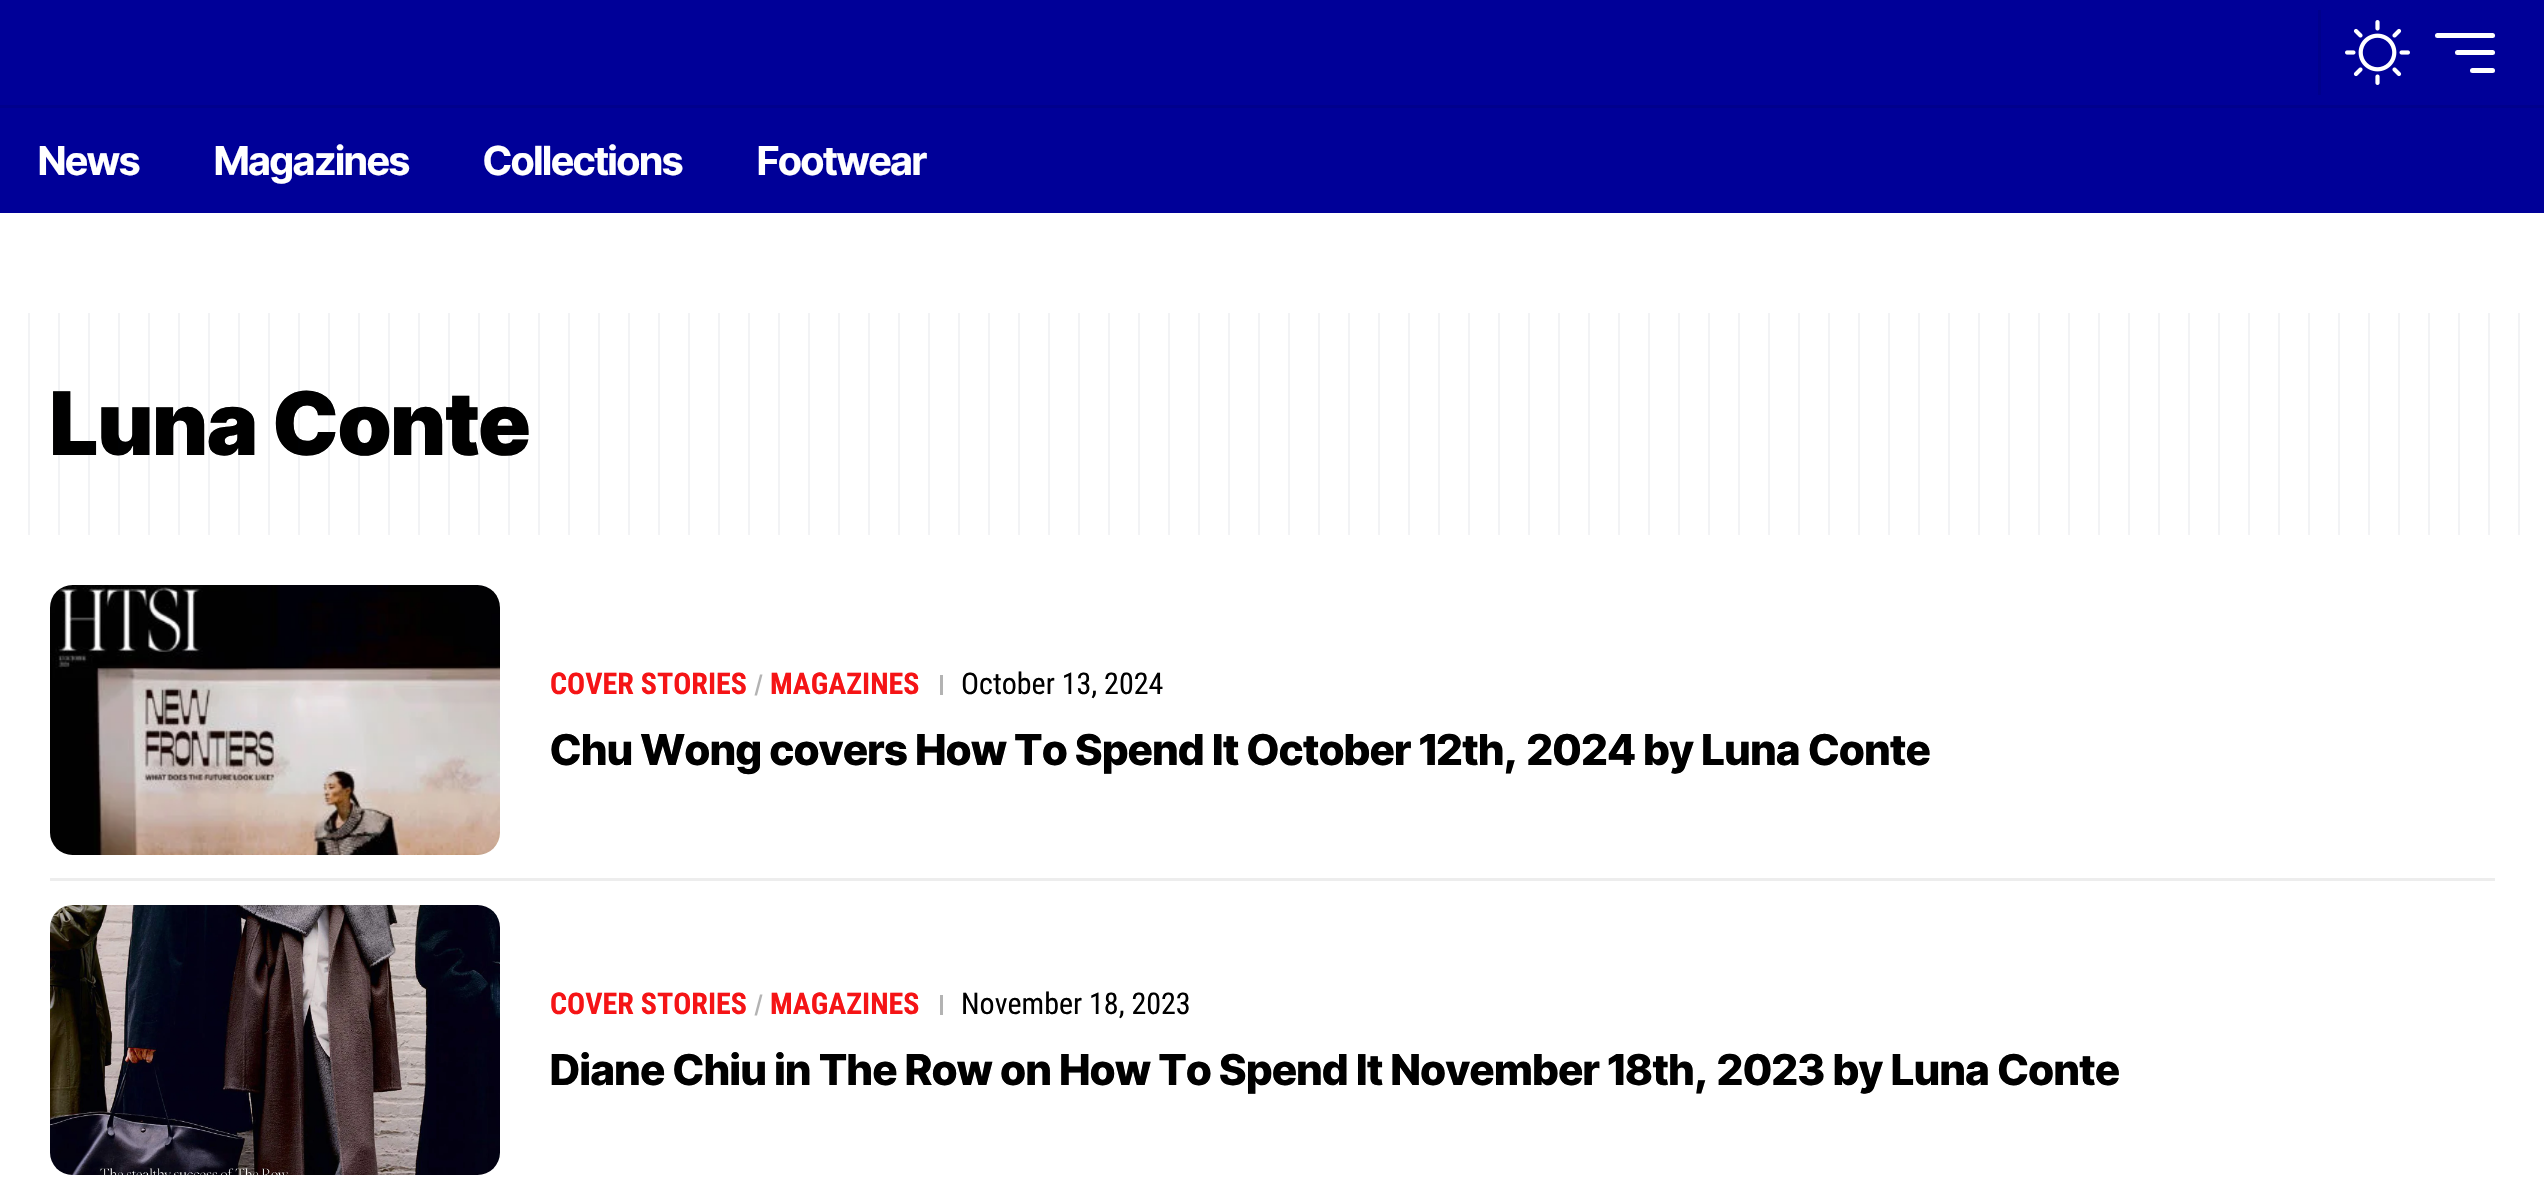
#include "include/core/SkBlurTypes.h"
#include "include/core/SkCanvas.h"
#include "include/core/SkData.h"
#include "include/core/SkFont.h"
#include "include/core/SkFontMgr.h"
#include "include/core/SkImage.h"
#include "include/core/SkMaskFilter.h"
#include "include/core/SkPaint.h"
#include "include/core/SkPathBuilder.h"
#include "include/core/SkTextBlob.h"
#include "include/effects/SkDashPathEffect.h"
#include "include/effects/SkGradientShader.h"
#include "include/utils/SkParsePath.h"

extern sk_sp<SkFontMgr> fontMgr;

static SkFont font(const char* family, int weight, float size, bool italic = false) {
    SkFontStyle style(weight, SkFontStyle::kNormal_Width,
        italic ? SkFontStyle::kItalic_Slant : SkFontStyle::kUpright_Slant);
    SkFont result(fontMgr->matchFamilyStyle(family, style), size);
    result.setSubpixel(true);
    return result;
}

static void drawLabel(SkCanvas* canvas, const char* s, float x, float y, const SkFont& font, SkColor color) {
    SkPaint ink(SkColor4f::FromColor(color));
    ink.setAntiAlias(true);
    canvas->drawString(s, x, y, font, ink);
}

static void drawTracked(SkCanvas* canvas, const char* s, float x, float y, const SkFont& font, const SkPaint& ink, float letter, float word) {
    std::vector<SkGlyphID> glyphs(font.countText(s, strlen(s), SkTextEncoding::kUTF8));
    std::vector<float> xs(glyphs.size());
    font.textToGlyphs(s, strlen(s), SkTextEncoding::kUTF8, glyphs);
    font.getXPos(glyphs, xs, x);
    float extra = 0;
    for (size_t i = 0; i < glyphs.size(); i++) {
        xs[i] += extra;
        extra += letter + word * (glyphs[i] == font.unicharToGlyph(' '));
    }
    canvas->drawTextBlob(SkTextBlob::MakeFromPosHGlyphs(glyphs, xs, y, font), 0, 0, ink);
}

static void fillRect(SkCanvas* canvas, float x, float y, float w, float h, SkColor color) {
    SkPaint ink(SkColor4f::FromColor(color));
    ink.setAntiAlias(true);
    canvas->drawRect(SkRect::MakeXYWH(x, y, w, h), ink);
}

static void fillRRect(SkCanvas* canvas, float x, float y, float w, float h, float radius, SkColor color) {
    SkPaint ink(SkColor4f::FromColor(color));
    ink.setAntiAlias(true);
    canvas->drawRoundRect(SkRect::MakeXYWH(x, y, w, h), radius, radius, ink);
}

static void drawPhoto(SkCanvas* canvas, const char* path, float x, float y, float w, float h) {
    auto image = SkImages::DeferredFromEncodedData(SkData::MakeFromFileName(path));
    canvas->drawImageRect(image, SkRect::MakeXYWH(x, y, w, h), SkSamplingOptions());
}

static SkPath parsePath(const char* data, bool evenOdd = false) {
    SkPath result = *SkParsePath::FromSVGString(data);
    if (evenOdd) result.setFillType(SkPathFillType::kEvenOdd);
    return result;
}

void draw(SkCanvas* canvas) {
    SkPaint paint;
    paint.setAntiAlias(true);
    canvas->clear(0xFFFFFFFF);
    fillRect(canvas, 0, 0, 2544, 213, 0xFF000098);
    fillRect(canvas, 2318, 10, 3, 85, 0xFF00008C);
    drawPhoto(canvas, "assets/img1.png", 2345, 20, 65, 65);
    fillRRect(canvas, 2435, 33, 60, 5, 2.5f, 0xFFFFFFFF);
    fillRRect(canvas, 2455, 50, 40, 5, 2.5f, 0xFFFFFFFF);
    fillRRect(canvas, 2470, 68, 25, 5, 2.5f, 0xFFFFFFFF);
    fillRect(canvas, 0, 105, 2544, 3, 0xFF00008C);
    SkFont font1 = font("Inter Tight", 700, 40);
    paint.setColor(0xFFFFFFFF);
    drawTracked(canvas, "News", 38, 175, font1, paint, -0.75f, 0);
    drawTracked(canvas, "Magazines", 214, 175, font1, paint, -0.75f, 0);
    drawTracked(canvas, "Collections", 483, 175, font1, paint, -0.75f, 0);
    drawTracked(canvas, "Footwear", 757, 175, font1, paint, -0.75f, 0);
    SkFont font2 = font("Inter Tight", 900, 87.5f);
    drawLabel(canvas, "Luna Conte", 50, 455, font2, 0xFF000000);
    drawPhoto(canvas, "assets/img2.png", 28, 313, 2492, 222);
    drawPhoto(canvas, "assets/img3.png", 50, 585, 450, 270);
    SkFont font3 = font("Roboto Condensed", 700, 30);
    drawLabel(canvas, "COVER STORIES", 550, 694, font3, 0xFFF51416);
    paint.setColor(0xFFB3B3B3);
    canvas->drawPath(parsePath("M760 674.5H762.5L757 695.5H754.5Z"), paint);
    drawLabel(canvas, "MAGAZINES", 770, 694, font3, 0xFFF51416);
    fillRect(canvas, 940, 675, 3, 20, 0xFFB3B3B3);
    SkFont font4 = font("Roboto Condensed", 400, 30);
    drawLabel(canvas, "October 13, 2024", 961, 694, font4, 0xFF000000);
    SkFont font5 = font("Inter Tight", 800, 42.5f);
    drawLabel(canvas, "Chu Wong covers How To Spend It October 12th, 2024 by Luna Conte", 550, 765, font5, 0xFF000000);
    fillRect(canvas, 50, 878, 2445, 3, 0xFFEDEDED);
    drawPhoto(canvas, "assets/img4.png", 50, 905, 450, 270);
    drawLabel(canvas, "COVER STORIES", 550, 1014, font3, 0xFFF51416);
    canvas->drawPath(parsePath("M760 994.5H762.5L757 1015.5H754.5Z"), paint);
    drawLabel(canvas, "MAGAZINES", 770, 1014, font3, 0xFFF51416);
    fillRect(canvas, 940, 995, 3, 20, 0xFFB3B3B3);
    drawLabel(canvas, "November 18, 2023", 961, 1014, font4, 0xFF000000);
    drawLabel(canvas, "Diane Chiu in The Row on How To Spend It November 18th, 2023 by Luna Conte", 550, 1085, font5, 0xFF000000);
}
